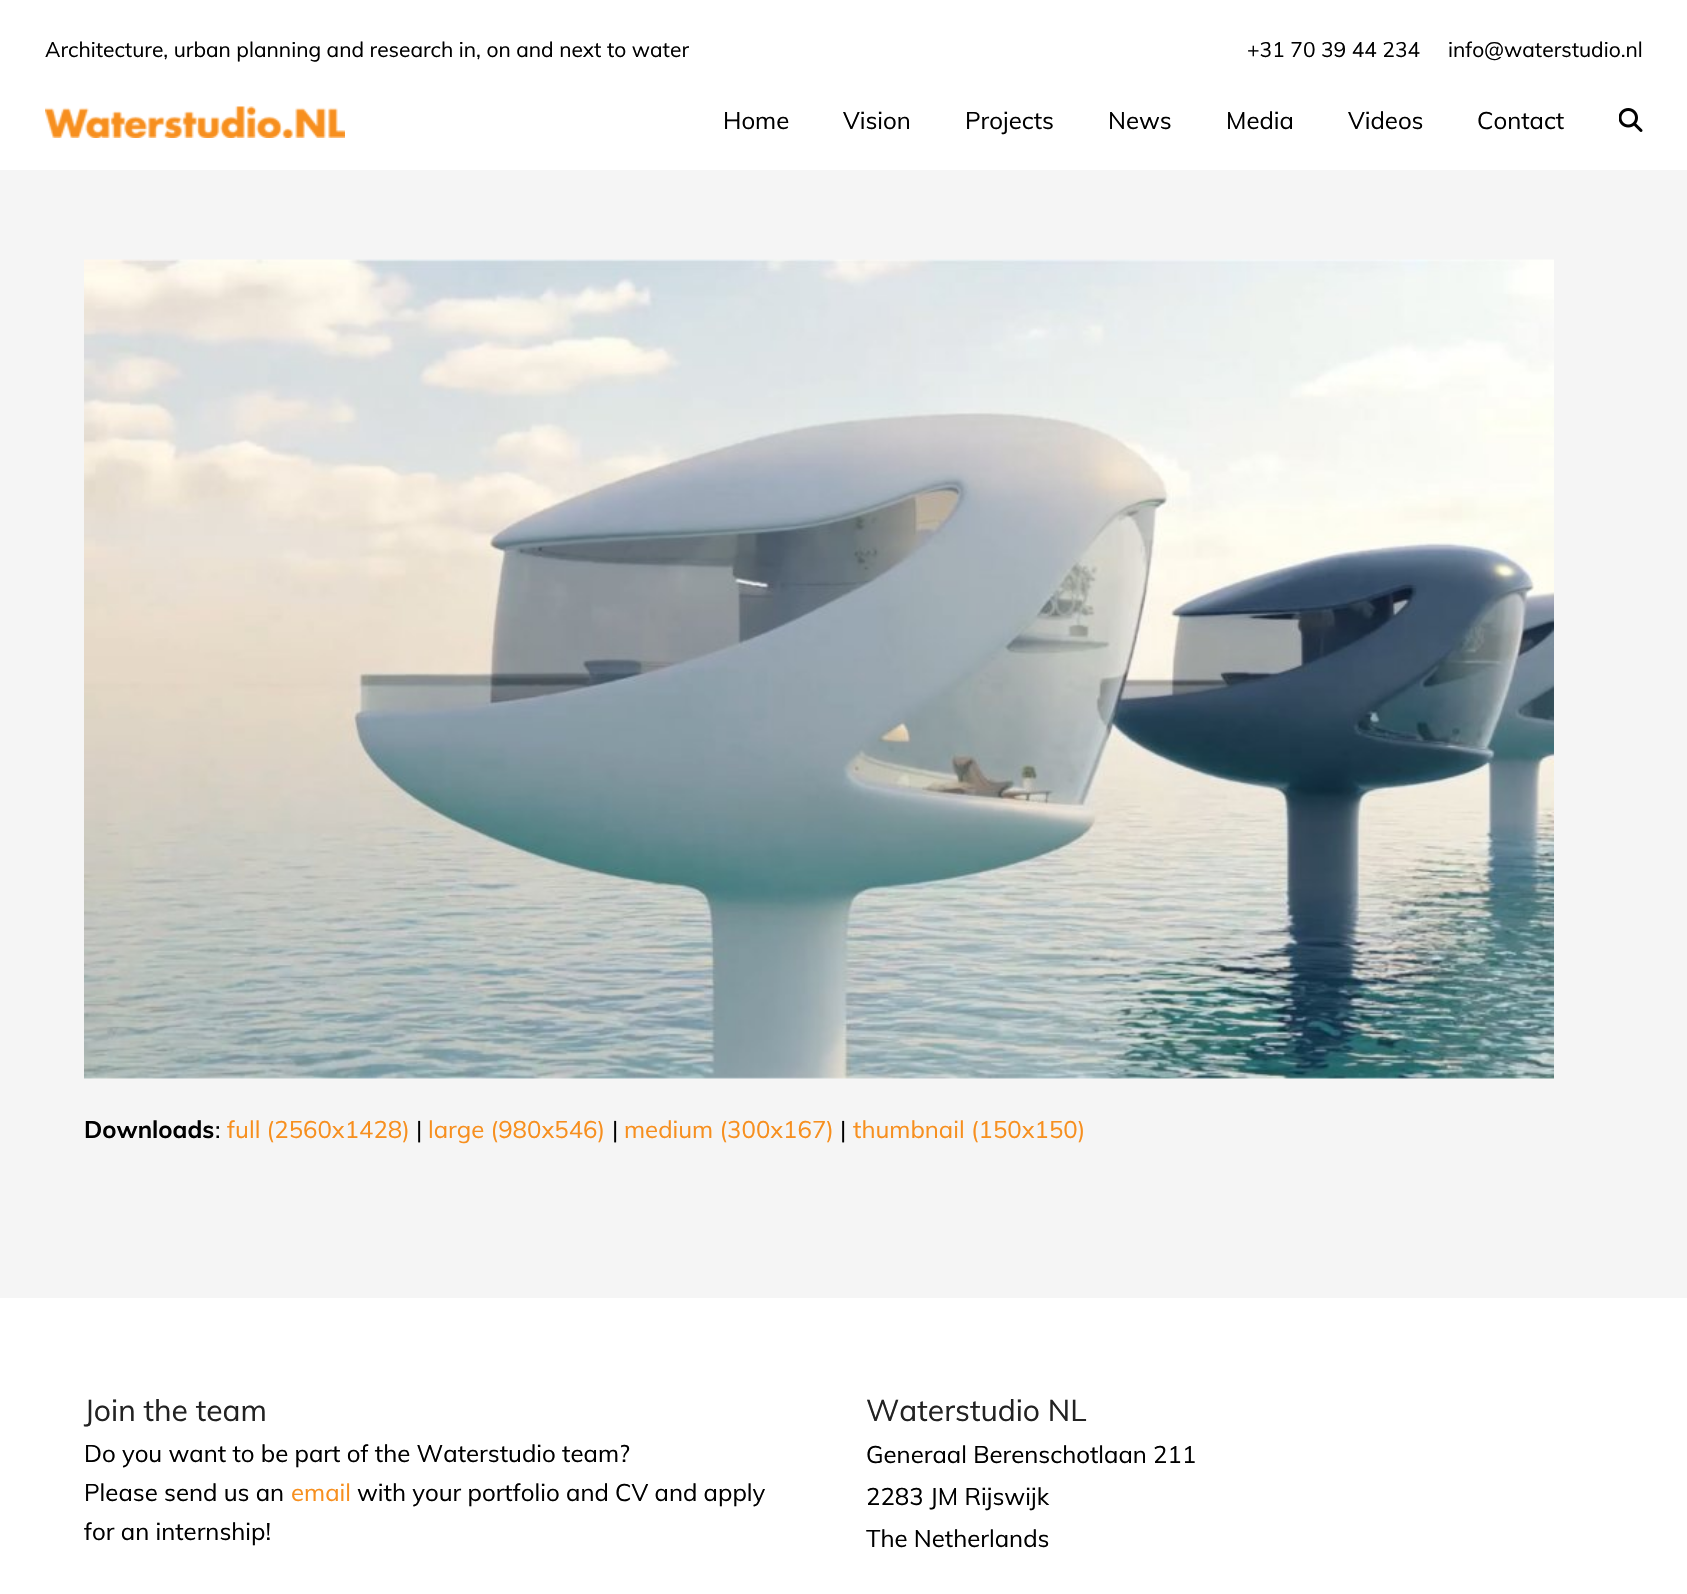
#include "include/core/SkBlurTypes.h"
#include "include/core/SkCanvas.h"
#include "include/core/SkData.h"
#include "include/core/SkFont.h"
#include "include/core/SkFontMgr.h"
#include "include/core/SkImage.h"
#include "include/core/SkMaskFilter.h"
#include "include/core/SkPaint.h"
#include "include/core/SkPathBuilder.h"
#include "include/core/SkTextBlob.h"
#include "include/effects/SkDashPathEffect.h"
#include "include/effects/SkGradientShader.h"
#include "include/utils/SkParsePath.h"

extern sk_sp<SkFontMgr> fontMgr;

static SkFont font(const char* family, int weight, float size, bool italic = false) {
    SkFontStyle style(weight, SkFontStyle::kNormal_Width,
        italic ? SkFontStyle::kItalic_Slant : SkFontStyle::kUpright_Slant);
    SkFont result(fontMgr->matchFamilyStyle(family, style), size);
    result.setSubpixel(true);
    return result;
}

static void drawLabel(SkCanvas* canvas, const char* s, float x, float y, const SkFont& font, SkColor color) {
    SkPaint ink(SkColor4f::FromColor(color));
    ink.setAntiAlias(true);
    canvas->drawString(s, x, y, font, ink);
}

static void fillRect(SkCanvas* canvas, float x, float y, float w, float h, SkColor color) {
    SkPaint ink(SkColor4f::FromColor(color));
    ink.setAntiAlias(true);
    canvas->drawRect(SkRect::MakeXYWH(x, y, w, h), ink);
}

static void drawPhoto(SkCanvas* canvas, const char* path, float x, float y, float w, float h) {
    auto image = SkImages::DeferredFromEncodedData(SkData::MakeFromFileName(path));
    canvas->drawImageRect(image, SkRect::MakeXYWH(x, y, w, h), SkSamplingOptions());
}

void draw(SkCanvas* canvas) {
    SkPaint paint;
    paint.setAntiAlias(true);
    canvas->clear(0xFFF5F5F5);
    fillRect(canvas, 0, 0, 1687, 170, 0xFFFFFFFF);
    SkFont font1 = font("Muli", 400, 21);
    drawLabel(canvas, "Architecture, urban planning and research in, on and next to water", 45, 57, font1, 0xFF000000);
    drawLabel(canvas, "+31 70 39 44 234", 1247, 57, font1, 0xFF000000);
    drawLabel(canvas, "info@waterstudio.nl", 1448, 57, font1, 0xFF000000);
    drawPhoto(canvas, "assets/img1.png", 45, 106, 300, 32);
    SkFont font2 = font("Muli", 400, 24);
    drawLabel(canvas, "Home", 723, 129, font2, 0xFF000000);
    drawLabel(canvas, "Vision", 843, 129, font2, 0xFF000000);
    drawLabel(canvas, "Projects", 965, 129, font2, 0xFF000000);
    drawLabel(canvas, "News", 1108, 129, font2, 0xFF000000);
    drawLabel(canvas, "Media", 1226, 129, font2, 0xFF000000);
    drawLabel(canvas, "Videos", 1348, 129, font2, 0xFF000000);
    drawLabel(canvas, "Contact", 1477, 129, font2, 0xFF000000);
    drawPhoto(canvas, "assets/img2.png", 1619, 108, 24, 24);
    drawPhoto(canvas, "assets/img3.png", 84, 259, 1470, 820);
    SkFont font3 = font("Muli", 700, 24);
    drawLabel(canvas, "Downloads", 84, 1138, font3, 0xFF000000);
    drawLabel(canvas, ":", 215, 1138, font2, 0xFF000000);
    drawLabel(canvas, "full (2560x1428)", 227, 1138, font2, 0xFFF78F1E);
    drawLabel(canvas, "|", 416, 1138, font2, 0xFF000000);
    drawLabel(canvas, "large (980x546)", 428, 1138, font2, 0xFFF78F1E);
    drawLabel(canvas, "|", 612, 1138, font2, 0xFF000000);
    drawLabel(canvas, "medium (300x167)", 624, 1138, font2, 0xFFF78F1E);
    drawLabel(canvas, "|", 840, 1138, font2, 0xFF000000);
    drawLabel(canvas, "thumbnail (150x150)", 853, 1138, font2, 0xFFF78F1E);
    fillRect(canvas, 0, 1298, 1687, 296, 0xFFFFFFFF);
    SkFont font4 = font("Muli", 400, 30);
    drawLabel(canvas, "Join the team", 84, 1421, font4, 0xFF222222);
    drawLabel(canvas, "Do you want to be part of the Waterstudio team?", 84, 1462, font2, 0xFF000000);
    drawLabel(canvas, "Please send us an", 84, 1501, font2, 0xFF000000);
    drawLabel(canvas, "email", 291, 1501, font2, 0xFFF78F1E);
    drawLabel(canvas, "with your portfolio and CV and apply", 357, 1501, font2, 0xFF000000);
    drawLabel(canvas, "for an internship!", 84, 1540, font2, 0xFF000000);
    drawLabel(canvas, "Waterstudio NL", 866, 1421, font4, 0xFF222222);
    drawLabel(canvas, "Generaal Berenschotlaan 211", 866, 1463, font2, 0xFF000000);
    drawLabel(canvas, "2283 JM Rijswijk", 866, 1505, font2, 0xFF000000);
    drawLabel(canvas, "The Netherlands", 866, 1547, font2, 0xFF000000);
}
